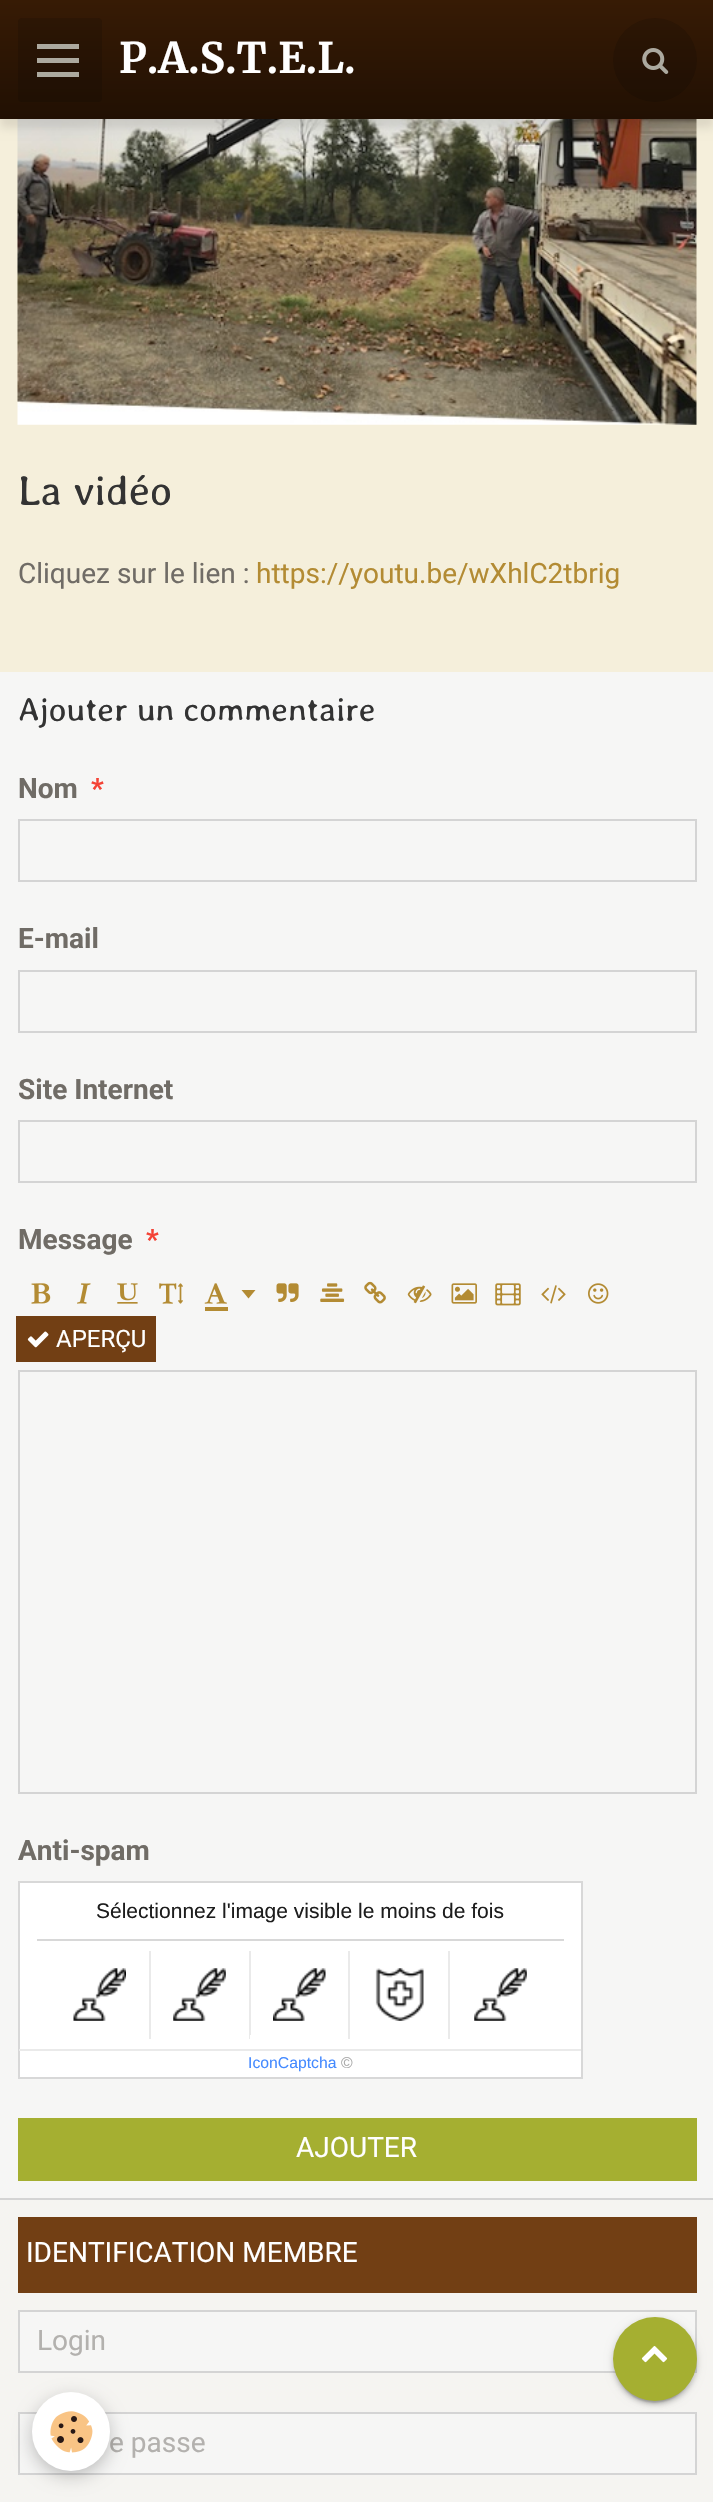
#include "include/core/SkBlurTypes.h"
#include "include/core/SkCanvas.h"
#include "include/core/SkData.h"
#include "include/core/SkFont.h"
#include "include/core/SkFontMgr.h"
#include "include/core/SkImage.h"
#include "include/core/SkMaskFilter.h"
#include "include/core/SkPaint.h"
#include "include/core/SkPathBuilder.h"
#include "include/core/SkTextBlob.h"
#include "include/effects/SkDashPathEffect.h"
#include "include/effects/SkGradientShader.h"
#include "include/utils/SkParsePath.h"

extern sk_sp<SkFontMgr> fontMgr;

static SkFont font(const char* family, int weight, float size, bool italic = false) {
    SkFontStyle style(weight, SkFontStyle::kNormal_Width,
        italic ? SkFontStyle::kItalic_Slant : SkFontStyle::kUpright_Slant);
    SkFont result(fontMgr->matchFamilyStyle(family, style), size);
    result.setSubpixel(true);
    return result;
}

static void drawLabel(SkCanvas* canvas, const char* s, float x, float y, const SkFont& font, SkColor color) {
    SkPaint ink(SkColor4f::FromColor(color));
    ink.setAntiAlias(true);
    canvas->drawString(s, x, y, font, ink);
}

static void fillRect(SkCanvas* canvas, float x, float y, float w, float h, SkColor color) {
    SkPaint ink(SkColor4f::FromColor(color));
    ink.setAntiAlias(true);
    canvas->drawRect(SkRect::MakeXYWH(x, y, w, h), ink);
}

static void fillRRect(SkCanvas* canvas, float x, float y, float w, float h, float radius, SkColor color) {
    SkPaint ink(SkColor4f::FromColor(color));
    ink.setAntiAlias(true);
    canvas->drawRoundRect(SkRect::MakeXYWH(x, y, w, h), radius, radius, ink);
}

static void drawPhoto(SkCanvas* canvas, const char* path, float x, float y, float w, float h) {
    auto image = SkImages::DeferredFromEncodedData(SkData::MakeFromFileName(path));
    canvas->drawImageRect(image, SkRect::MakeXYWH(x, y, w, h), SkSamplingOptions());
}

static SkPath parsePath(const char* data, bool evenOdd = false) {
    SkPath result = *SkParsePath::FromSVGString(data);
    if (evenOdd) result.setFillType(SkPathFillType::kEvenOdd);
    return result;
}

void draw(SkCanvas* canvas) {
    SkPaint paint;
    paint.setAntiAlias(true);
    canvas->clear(0xFFF5EFDB);
    drawPhoto(canvas, "assets/img2.png", 17, 119, 680, 306);
    paint.setColor(0x1A000000);
    paint.setMaskFilter(SkMaskFilter::MakeBlur(kNormal_SkBlurStyle, 4.5f));
    canvas->drawRect(SkRect::MakeXYWH(0, 9, 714, 119), paint);
    paint.setMaskFilter(nullptr);
    {
        const SkColor colors[] = {0xFF211003, 0xFF371B05};
        const float stops[] = {0, 1};
        const SkPoint ends[] = {{357, 119}, {357, 0}};
        paint.setShader(SkGradientShader::MakeLinear(ends, colors, stops, 2, SkTileMode::kClamp));
        paint.setAlpha(255);
    }
    canvas->drawRect(SkRect::MakeXYWH(0, 0, 713, 119), paint);
    fillRRect(canvas, 18, 18, 84, 84, 4, 0x26000000);
    fillRect(canvas, 37, 58, 42, 5, 0xFFACA99F);
    fillRect(canvas, 37, 44, 42, 5, 0xFFACA99F);
    fillRect(canvas, 37, 72, 42, 5, 0xFFACA99F);
    SkFont font1 = font("Merriweather", 700, 42);
    drawLabel(canvas, "P.A.S.T.E.L.", 119, 73, font1, 0xFFFFFFFF);
    paint.setShader(nullptr);
    paint.setColor(0x26000000);
    canvas->drawCircle(655, 60, 42, paint);
    drawPhoto(canvas, "assets/img1.png", 642, 48, 27, 26);
    SkFont font2 = font("Averia Libre", 300, 42);
    drawLabel(canvas, "La vidéo", 18, 505, font2, 0xFF333333);
    SkFont font3 = font("Roboto", 400, 28);
    drawLabel(canvas, "Cliquez sur le lien :", 18, 583, font3, 0xFF706C66);
    drawLabel(canvas, "https://youtu.be/wXhlC2tbrig", 256, 583, font3, 0xFFB38B33);
    fillRect(canvas, 0, 672, 713, 1526, 0xFFF6F6F5);
    SkFont font4 = font("Averia Libre", 300, 33.6f);
    drawLabel(canvas, "Ajouter un commentaire", 18, 721, font4, 0xFF333333);
    SkFont font5 = font("Roboto", 700, 28);
    drawLabel(canvas, "Nom", 18, 798, font5, 0xFF706C66);
    drawLabel(canvas, "*", 91, 798, font5, 0xFFF44336);
    paint.setStroke(true);
    paint.setStrokeWidth(2);
    paint.setColor(0xFFD4D4D4);
    canvas->drawRect(SkRect::MakeXYWH(19, 820, 677, 61), paint);
    drawLabel(canvas, "E-mail", 18, 948, font5, 0xFF706C66);
    canvas->drawRect(SkRect::MakeXYWH(19, 971, 677, 61), paint);
    drawLabel(canvas, "Site Internet", 18, 1099, font5, 0xFF706C66);
    canvas->drawRect(SkRect::MakeXYWH(19, 1121, 677, 61), paint);
    drawLabel(canvas, "Message", 18, 1249, font5, 0xFF706C66);
    drawLabel(canvas, "*", 146, 1249, font5, 0xFFF44336);
    drawPhoto(canvas, "assets/img3.png", 31, 1283, 20, 21);
    drawPhoto(canvas, "assets/img4.png", 77, 1283, 14, 21);
    drawPhoto(canvas, "assets/img5.png", 117, 1283, 21, 21);
    drawPhoto(canvas, "assets/img6.png", 159, 1283, 24, 21);
    drawPhoto(canvas, "assets/img7.png", 204, 1283, 23, 21);
    fillRect(canvas, 205, 1307, 23, 4, 0xFFB38B33);
    paint.setStroke(false);
    paint.setColor(0xFFB38B33);
    canvas->drawPath(parsePath("M241.5 1290H255.5L248.5 1298.5Z"), paint);
    drawPhoto(canvas, "assets/img8.png", 276, 1283, 23, 19);
    drawPhoto(canvas, "assets/img9.png", 320, 1283, 25, 19);
    drawPhoto(canvas, "assets/img10.png", 364, 1281, 22, 23);
    drawPhoto(canvas, "assets/img11.png", 407, 1285, 25, 19);
    drawPhoto(canvas, "assets/img12.png", 451, 1283, 26, 21);
    drawPhoto(canvas, "assets/img13.png", 495, 1283, 26, 23);
    drawPhoto(canvas, "assets/img14.png", 541, 1285, 25, 19);
    drawPhoto(canvas, "assets/img15.png", 588, 1283, 21, 21);
    fillRect(canvas, 16, 1316, 140, 46, 0xFF723F14);
    drawPhoto(canvas, "assets/img16.png", 27, 1331, 22, 17);
    SkFont font6 = font("Roboto", 400, 24);
    drawLabel(canvas, "APERÇU", 56, 1347, font6, 0xFFFFFFFF);
    paint.setStroke(true);
    paint.setColor(0xFFD4D4D4);
    canvas->drawRect(SkRect::MakeXYWH(19, 1371, 677, 422), paint);
    drawLabel(canvas, "Anti-spam", 18, 1860, font5, 0xFF706C66);
    paint.setStroke(false);
    paint.setColor(0xFFFFFFFF);
    canvas->drawRect(SkRect::MakeXYWH(19, 1882, 563, 196), paint);
    paint.setStroke(true);
    paint.setColor(0xFFD8D8D8);
    canvas->drawRect(SkRect::MakeXYWH(19, 1882, 563, 196), paint);
    fillRect(canvas, 37, 1939, 527, 2, 0xFFD8D8D8);
    SkFont font7 = font("Liberation Sans", 400, 21);
    drawLabel(canvas, "Sélectionnez l'image visible le moins de fois", 96, 1918, font7, 0xFF1D1D1D);
    drawPhoto(canvas, "assets/img17.png", 73, 1968, 53, 53);
    fillRect(canvas, 149, 1951, 2, 88, 0xFFEAEAEA);
    drawPhoto(canvas, "assets/img18.png", 173, 1968, 53, 53);
    fillRect(canvas, 249, 1951, 2, 88, 0xFFEAEAEA);
    drawPhoto(canvas, "assets/img19.png", 273, 1968, 53, 53);
    fillRect(canvas, 348, 1951, 2, 88, 0xFFEAEAEA);
    fillRect(canvas, 250, 2035, 1, 4, 0xFFFFFFFF);
    drawPhoto(canvas, "assets/img20.png", 375, 1968, 49, 53);
    fillRect(canvas, 448, 1951, 2, 88, 0xFFEAEAEA);
    drawPhoto(canvas, "assets/img21.png", 474, 1968, 53, 53);
    fillRect(canvas, 19, 2049, 562, 2, 0xFFEAEAEA);
    SkFont font8 = font("Liberation Sans", 400, 15.75f);
    drawLabel(canvas, "IconCaptcha", 248, 2068, font8, 0xFF448AFF);
    drawLabel(canvas, "©", 341, 2068, font8, 0xFFA7A7A7);
    fillRect(canvas, 18, 2118, 679, 63, 0xFFA5AF31);
    drawLabel(canvas, "AJOUTER", 296, 2157, font3, 0xFFFFFFFF);
    fillRect(canvas, 0, 2200, 713, 302, 0xFFF5F4F1);
    fillRect(canvas, 0, 2198, 713, 2, 0xFFD4D4D4);
    fillRect(canvas, 18, 2217, 679, 76, 0xFF723F14);
    drawLabel(canvas, "IDENTIFICATION MEMBRE", 26, 2262, font3, 0xFFFFFFFF);
    paint.setStroke(false);
    paint.setColor(0xFFF6F6F5);
    canvas->drawRect(SkRect::MakeXYWH(19, 2311, 677, 61), paint);
    paint.setStroke(true);
    paint.setColor(0xFFD4D4D4);
    canvas->drawRect(SkRect::MakeXYWH(19, 2311, 677, 61), paint);
    drawLabel(canvas, "Login", 37, 2350, font3, 0xFFB3B1AE);
    paint.setStroke(false);
    paint.setColor(0xFFF6F6F5);
    canvas->drawRect(SkRect::MakeXYWH(19, 2413, 677, 61), paint);
    paint.setStroke(true);
    paint.setColor(0xFFD4D4D4);
    canvas->drawRect(SkRect::MakeXYWH(19, 2413, 677, 61), paint);
    drawLabel(canvas, "e passe", 109, 2452, font3, 0xFFB3B1AE);
    paint.setStroke(false);
    paint.setColor(0x1F000000);
    paint.setMaskFilter(SkMaskFilter::MakeBlur(kNormal_SkBlurStyle, 4.5f));
    canvas->drawRoundRect(SkRect::MakeXYWH(613, 2319, 84, 84), 42, 42, paint);
    paint.setMaskFilter(nullptr);
    paint.setColor(0x33000000);
    paint.setMaskFilter(SkMaskFilter::MakeBlur(kNormal_SkBlurStyle, 1));
    canvas->drawRoundRect(SkRect::MakeXYWH(616, 2326, 77, 77), 38.5f, 38.5f, paint);
    paint.setMaskFilter(nullptr);
    paint.setColor(0x24000000);
    paint.setMaskFilter(SkMaskFilter::MakeBlur(kNormal_SkBlurStyle, 2));
    canvas->drawRoundRect(SkRect::MakeXYWH(613, 2321, 84, 84), 42, 42, paint);
    paint.setMaskFilter(nullptr);
    paint.setColor(0xFFA5AF31);
    canvas->drawCircle(655, 2359, 42, paint);
    drawPhoto(canvas, "assets/img22.png", 641, 2346, 27, 17);
    paint.setColor(0x3D000000);
    paint.setMaskFilter(SkMaskFilter::MakeBlur(kNormal_SkBlurStyle, 9));
    canvas->drawRoundRect(SkRect::MakeXYWH(32, 2398, 78, 78), 39, 39, paint);
    paint.setMaskFilter(nullptr);
    fillRRect(canvas, 32, 2392, 78, 79, 39, 0xFFFFFFFF);
    drawPhoto(canvas, "assets/img23.png", 50, 2411, 43, 42);
}
